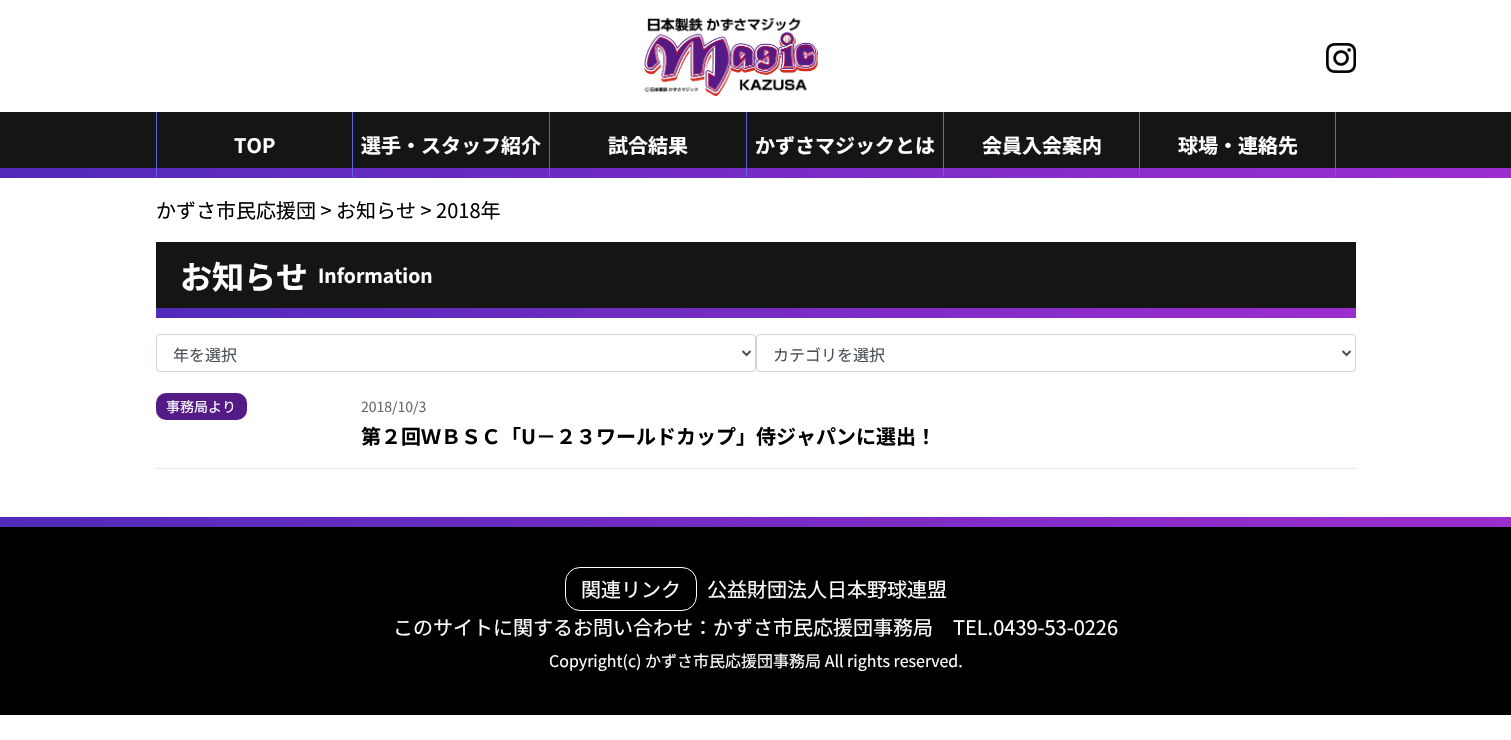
#include "include/core/SkBlurTypes.h"
#include "include/core/SkCanvas.h"
#include "include/core/SkData.h"
#include "include/core/SkFont.h"
#include "include/core/SkFontMgr.h"
#include "include/core/SkImage.h"
#include "include/core/SkMaskFilter.h"
#include "include/core/SkPaint.h"
#include "include/core/SkPathBuilder.h"
#include "include/core/SkTextBlob.h"
#include "include/effects/SkDashPathEffect.h"
#include "include/effects/SkGradientShader.h"
#include "include/utils/SkParsePath.h"

extern sk_sp<SkFontMgr> fontMgr;

static SkFont font(const char* family, int weight, float size, bool italic = false) {
    SkFontStyle style(weight, SkFontStyle::kNormal_Width,
        italic ? SkFontStyle::kItalic_Slant : SkFontStyle::kUpright_Slant);
    SkFont result(fontMgr->matchFamilyStyle(family, style), size);
    result.setSubpixel(true);
    return result;
}

static void drawLabel(SkCanvas* canvas, const char* s, float x, float y, const SkFont& font, SkColor color) {
    SkPaint ink(SkColor4f::FromColor(color));
    ink.setAntiAlias(true);
    canvas->drawString(s, x, y, font, ink);
}

static void fillRect(SkCanvas* canvas, float x, float y, float w, float h, SkColor color) {
    SkPaint ink(SkColor4f::FromColor(color));
    ink.setAntiAlias(true);
    canvas->drawRect(SkRect::MakeXYWH(x, y, w, h), ink);
}

static void fillRRect(SkCanvas* canvas, float x, float y, float w, float h, float radius, SkColor color) {
    SkPaint ink(SkColor4f::FromColor(color));
    ink.setAntiAlias(true);
    canvas->drawRoundRect(SkRect::MakeXYWH(x, y, w, h), radius, radius, ink);
}

static void drawPhoto(SkCanvas* canvas, const char* path, float x, float y, float w, float h) {
    auto image = SkImages::DeferredFromEncodedData(SkData::MakeFromFileName(path));
    canvas->drawImageRect(image, SkRect::MakeXYWH(x, y, w, h), SkSamplingOptions());
}

static SkPath parsePath(const char* data, bool evenOdd = false) {
    SkPath result = *SkParsePath::FromSVGString(data);
    if (evenOdd) result.setFillType(SkPathFillType::kEvenOdd);
    return result;
}

void draw(SkCanvas* canvas) {
    SkPaint paint;
    paint.setAntiAlias(true);
    canvas->clear(0xFFFFFFFF);
    drawPhoto(canvas, "assets/img1.png", 644, 18, 174, 78);
    drawPhoto(canvas, "assets/img2.png", 1326, 43, 30, 30);
    fillRect(canvas, 0, 112, 1511, 56, 0xFF151515);
    drawPhoto(canvas, "assets/img3.png", 0, 168, 1511, 10);
    fillRect(canvas, 156, 112, 1, 65, 0xFF6164D7);
    SkFont font1 = font("Noto Sans JP", 700, 20);
    drawLabel(canvas, "TOP", 234, 153, font1, 0xFFFFFFFF);
    fillRect(canvas, 352, 112, 1, 65, 0xFF6164D7);
    drawLabel(canvas, "選手・スタッフ紹介", 361, 153, font1, 0xFFFFFFFF);
    fillRect(canvas, 549, 112, 1, 65, 0xFF6164D7);
    drawLabel(canvas, "試合結果", 608, 153, font1, 0xFFFFFFFF);
    fillRect(canvas, 746, 112, 1, 65, 0xFF6164D7);
    drawLabel(canvas, "かずさマジックとは", 755, 153, font1, 0xFFFFFFFF);
    fillRect(canvas, 943, 112, 1, 65, 0xFF6164D7);
    drawLabel(canvas, "会員入会案内", 982, 153, font1, 0xFFFFFFFF);
    fillRect(canvas, 1335, 112, 1, 65, 0xFF6164D7);
    fillRect(canvas, 1139, 112, 1, 65, 0xFF6164D7);
    drawLabel(canvas, "球場・連絡先", 1178, 153, font1, 0xFFFFFFFF);
    SkFont font2 = font("Noto Sans JP", 400, 20);
    drawLabel(canvas, "かずさ市民応援団 > お知らせ > 2018年", 156, 218, font2, 0xFF000000);
    fillRect(canvas, 156, 242, 1200, 66, 0xFF151515);
    drawPhoto(canvas, "assets/img4.png", 156, 308, 1200, 10);
    SkFont font3 = font("Noto Sans JP", 700, 32);
    drawLabel(canvas, "お知らせ", 180, 289, font3, 0xFFFFFFFF);
    SkFont font4 = font("Noto Sans JP", 700, 19.25f);
    drawLabel(canvas, "Information", 318, 283, font4, 0xFFFFFFFF);
    paint.setStroke(true);
    paint.setStrokeWidth(1);
    paint.setColor(0xFFCED4DA);
    canvas->drawRoundRect(SkRect::MakeXYWH(156.5f, 334.5f, 599, 37), 3.5f, 3.5f, paint);
    paint.setStrokeWidth(2);
    paint.setColor(0xFF495057);
    canvas->drawPath(parsePath("M742.5 351L746.5 355L750.5 351"), paint);
    SkFont font5 = font("Noto Sans JP", 400, 16);
    drawLabel(canvas, "年を選択", 173, 361, font5, 0xFF495057);
    paint.setStrokeWidth(1);
    paint.setColor(0xFFCED4DA);
    canvas->drawRoundRect(SkRect::MakeXYWH(756.5f, 334.5f, 599, 37), 3.5f, 3.5f, paint);
    paint.setStrokeWidth(2);
    paint.setColor(0xFF495057);
    canvas->drawPath(parsePath("M1342.5 351L1346.5 355L1350.5 351"), paint);
    drawLabel(canvas, "カテゴリを選択", 773, 361, font5, 0xFF495057);
    fillRRect(canvas, 156, 393, 91, 27, 10, 0xFF541B86);
    SkFont font6 = font("Noto Sans JP", 400, 14);
    drawLabel(canvas, "事務局より", 166, 412, font6, 0xFFFFFFFF);
    drawLabel(canvas, "2018/10/3", 361, 412, font6, 0xFF666666);
    drawLabel(canvas, "第２回ＷＢＳＣ「U－２３ワールドカップ」侍ジャパンに選出！", 361, 444, font1, 0xFF000000);
    fillRect(canvas, 156, 468, 1200, 1, 0xFFE6E6E6);
    fillRect(canvas, 0, 527, 1511, 188, 0xFF000000);
    drawPhoto(canvas, "assets/img5.png", 0, 517, 1511, 10);
    paint.setStrokeWidth(1);
    paint.setColor(0xFFFFFFFF);
    canvas->drawRoundRect(SkRect::MakeXYWH(565.5f, 567.5f, 131, 43), 14.5f, 14.5f, paint);
    drawLabel(canvas, "関連リンク", 581, 597, font2, 0xFFFFFFFF);
    drawLabel(canvas, "公益財団法人日本野球連盟", 707, 597, font2, 0xFFFFFFFF);
    drawLabel(canvas, "このサイトに関するお問い合わせ：かずさ市民応援団事務局　TEL.0439-53-0226", 393, 635, font2, 0xFFFFFFFF);
    drawLabel(canvas, "Copyright(c) かずさ市民応援団事務局 All rights reserved.", 549, 667, font5, 0xFFFFFFFF);
}
